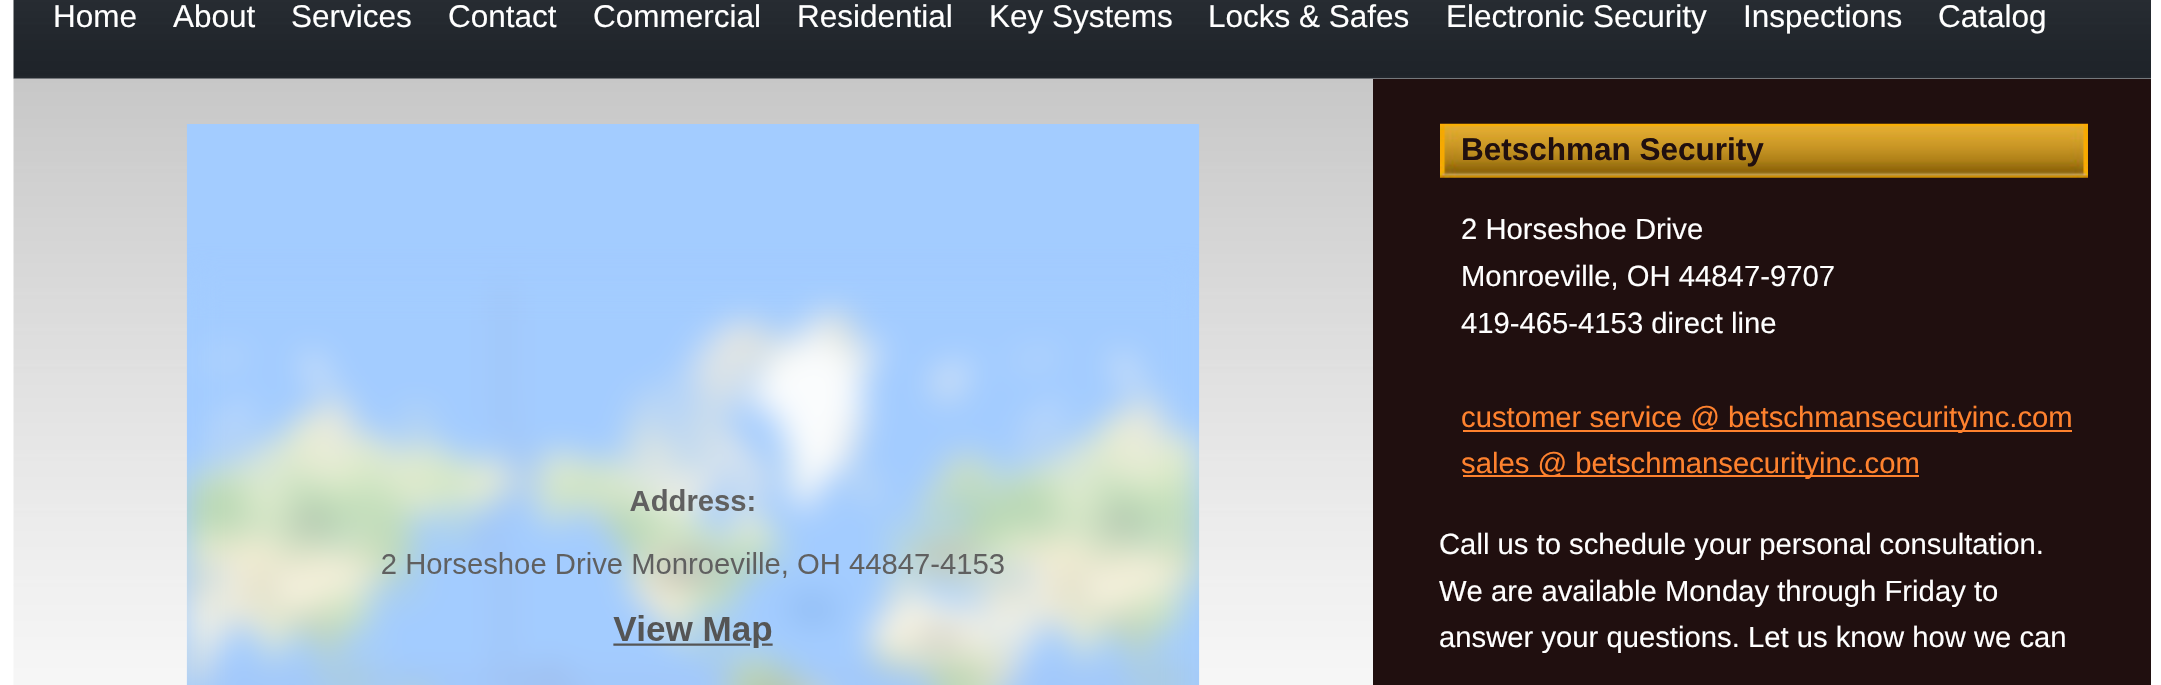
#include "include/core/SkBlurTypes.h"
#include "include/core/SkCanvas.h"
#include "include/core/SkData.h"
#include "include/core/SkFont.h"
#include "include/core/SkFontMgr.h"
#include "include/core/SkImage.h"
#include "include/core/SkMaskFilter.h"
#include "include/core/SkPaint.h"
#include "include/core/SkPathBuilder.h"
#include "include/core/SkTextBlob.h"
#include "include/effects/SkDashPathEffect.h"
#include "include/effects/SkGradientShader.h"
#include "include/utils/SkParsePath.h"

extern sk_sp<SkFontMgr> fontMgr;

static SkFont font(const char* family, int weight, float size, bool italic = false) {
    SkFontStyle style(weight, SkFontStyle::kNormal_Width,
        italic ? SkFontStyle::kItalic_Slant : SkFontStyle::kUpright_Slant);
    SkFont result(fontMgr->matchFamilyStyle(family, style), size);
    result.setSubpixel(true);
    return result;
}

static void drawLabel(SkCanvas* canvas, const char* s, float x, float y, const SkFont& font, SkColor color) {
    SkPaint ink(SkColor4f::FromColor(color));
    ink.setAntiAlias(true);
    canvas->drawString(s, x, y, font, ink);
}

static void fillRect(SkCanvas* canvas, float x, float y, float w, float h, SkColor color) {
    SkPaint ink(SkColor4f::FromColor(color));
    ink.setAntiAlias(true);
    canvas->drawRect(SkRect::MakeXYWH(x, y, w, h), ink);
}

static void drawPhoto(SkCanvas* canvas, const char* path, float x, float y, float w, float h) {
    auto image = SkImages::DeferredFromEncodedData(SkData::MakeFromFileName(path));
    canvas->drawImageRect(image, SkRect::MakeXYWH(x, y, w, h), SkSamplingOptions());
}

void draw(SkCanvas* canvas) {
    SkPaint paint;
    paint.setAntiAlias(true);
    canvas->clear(0xFFFFFFFF);
    drawPhoto(canvas, "assets/img1.png", 13, 0, 2138, 79);
    SkFont font1 = font("Liberation Sans", 400, 31.5f);
    drawLabel(canvas, "Home", 53, 27, font1, 0xFFFFFFFF);
    drawLabel(canvas, "About", 173, 27, font1, 0xFFFFFFFF);
    drawLabel(canvas, "Services", 291, 27, font1, 0xFFFFFFFF);
    drawLabel(canvas, "Contact", 448, 27, font1, 0xFFFFFFFF);
    drawLabel(canvas, "Commercial", 593, 27, font1, 0xFFFFFFFF);
    drawLabel(canvas, "Residential", 797, 27, font1, 0xFFFFFFFF);
    drawLabel(canvas, "Key Systems", 989, 27, font1, 0xFFFFFFFF);
    drawLabel(canvas, "Locks & Safes", 1208, 27, font1, 0xFFFFFFFF);
    drawLabel(canvas, "Electronic Security", 1446, 27, font1, 0xFFFFFFFF);
    drawLabel(canvas, "Inspections", 1743, 27, font1, 0xFFFFFFFF);
    drawLabel(canvas, "Catalog", 1938, 27, font1, 0xFFFFFFFF);
    drawPhoto(canvas, "assets/img2.png", 13, 78, 2138, 607);
    drawPhoto(canvas, "assets/img3.png", 186, 124, 1014, 561);
    fillRect(canvas, 1373, 79, 778, 606, 0xFF200F0F);
    drawPhoto(canvas, "assets/img4.png", 1440, 123, 648, 55);
    SkFont font2 = font("Liberation Sans", 700, 31.5f);
    drawLabel(canvas, "Betschman Security", 1461, 160, font2, 0xFF200F0F);
    SkFont font3 = font("Liberation Sans", 400, 29.25f);
    drawLabel(canvas, "2 Horseshoe Drive", 1461, 239, font3, 0xFFFFFFFF);
    drawLabel(canvas, "Monroeville, OH 44847-9707", 1461, 286, font3, 0xFFFFFFFF);
    drawLabel(canvas, "419-465-4153 direct line", 1461, 333, font3, 0xFFFFFFFF);
    fillRect(canvas, 1463, 430, 609, 2, 0xFFFF822E);
    drawLabel(canvas, "customer service @ betschmansecurityinc.com", 1461, 427, font3, 0xFFFF822E);
    fillRect(canvas, 1463, 475, 456, 2, 0xFFFF822E);
    drawLabel(canvas, "sales @ betschmansecurityinc.com", 1461, 473, font3, 0xFFFF822E);
    drawLabel(canvas, "Call us to schedule your personal consultation.", 1439, 554, font3, 0xFFFFFFFF);
    drawLabel(canvas, "We are available Monday through Friday to", 1439, 601, font3, 0xFFFFFFFF);
    drawLabel(canvas, "answer your questions. Let us know how we can", 1439, 647, font3, 0xFFFFFFFF);
}
